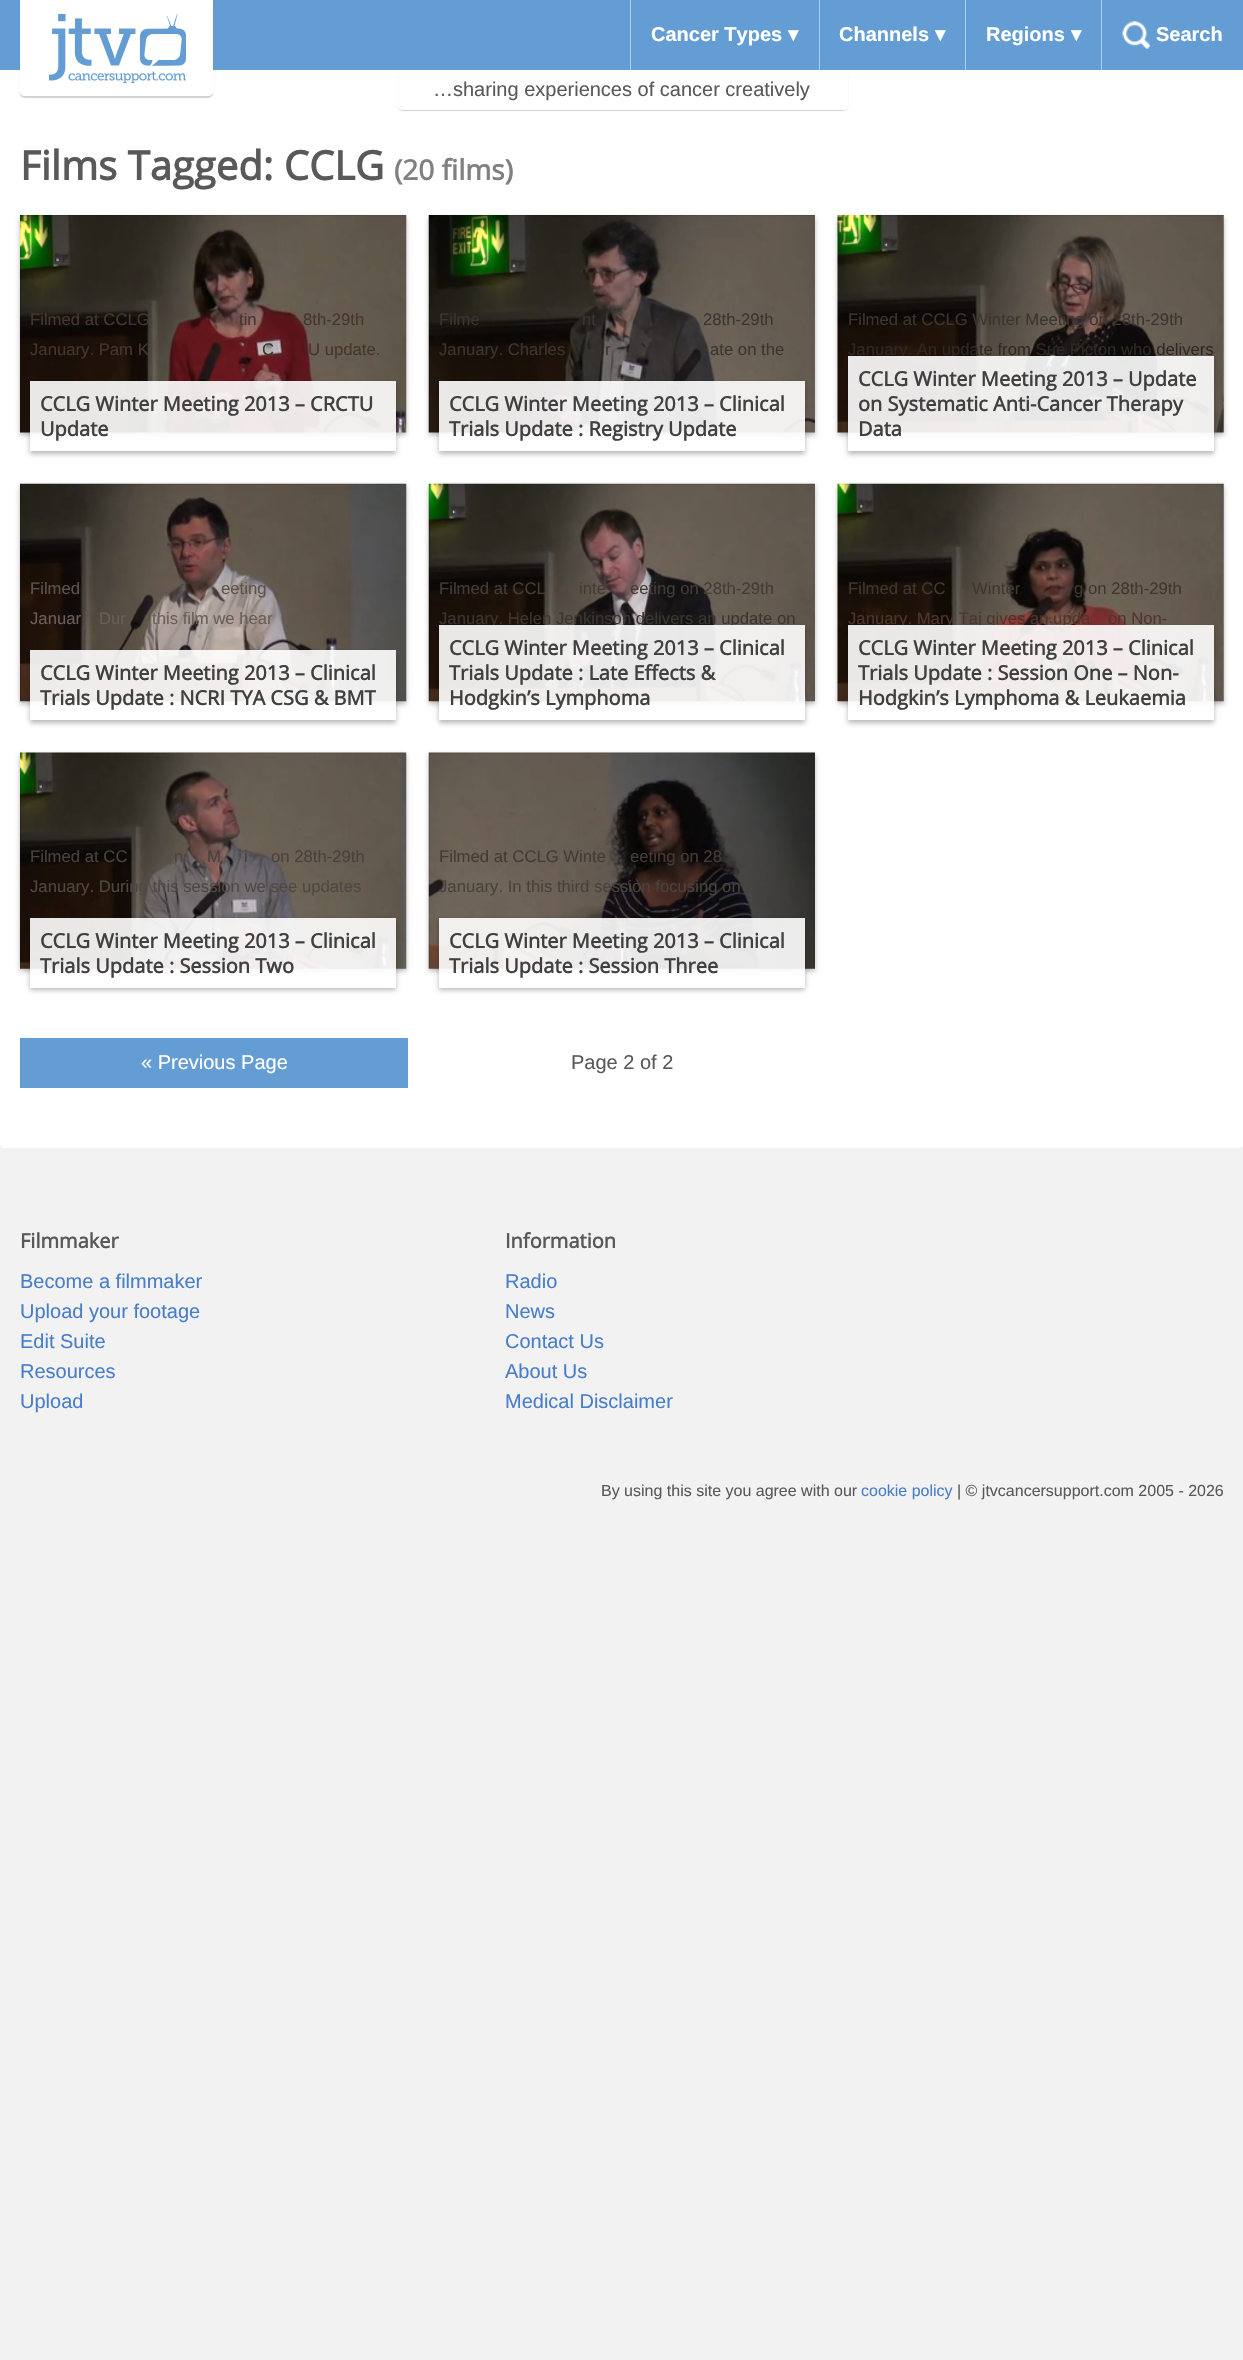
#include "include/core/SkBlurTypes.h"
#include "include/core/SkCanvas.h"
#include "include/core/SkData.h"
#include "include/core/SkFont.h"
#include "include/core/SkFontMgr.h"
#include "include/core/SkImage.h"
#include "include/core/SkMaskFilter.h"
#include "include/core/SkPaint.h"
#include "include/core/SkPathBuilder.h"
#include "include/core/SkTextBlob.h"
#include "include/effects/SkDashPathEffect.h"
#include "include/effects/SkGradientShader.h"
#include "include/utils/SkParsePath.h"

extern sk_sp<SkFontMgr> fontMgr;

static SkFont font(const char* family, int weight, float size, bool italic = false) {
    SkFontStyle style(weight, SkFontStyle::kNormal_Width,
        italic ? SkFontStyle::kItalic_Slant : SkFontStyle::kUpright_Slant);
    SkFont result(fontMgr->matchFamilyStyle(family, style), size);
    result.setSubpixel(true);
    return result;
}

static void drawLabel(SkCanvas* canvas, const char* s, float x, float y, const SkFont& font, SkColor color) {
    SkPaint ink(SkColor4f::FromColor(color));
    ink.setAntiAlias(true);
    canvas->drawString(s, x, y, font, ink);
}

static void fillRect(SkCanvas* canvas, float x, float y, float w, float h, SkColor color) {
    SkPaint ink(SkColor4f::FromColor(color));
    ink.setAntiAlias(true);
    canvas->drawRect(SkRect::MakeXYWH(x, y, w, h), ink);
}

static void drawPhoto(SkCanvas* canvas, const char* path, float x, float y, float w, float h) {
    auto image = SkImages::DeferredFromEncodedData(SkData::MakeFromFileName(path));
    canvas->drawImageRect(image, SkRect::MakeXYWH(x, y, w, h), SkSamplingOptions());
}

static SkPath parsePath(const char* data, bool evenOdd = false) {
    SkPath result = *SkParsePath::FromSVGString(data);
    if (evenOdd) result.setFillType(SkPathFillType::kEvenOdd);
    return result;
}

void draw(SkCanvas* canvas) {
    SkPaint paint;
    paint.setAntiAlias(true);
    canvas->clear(0xFFF2F2F2);
    paint.setColor(0xFFFFFFFF);
    canvas->drawPath(parsePath("M0 0H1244V1143C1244 1146 1242 1148 1239 1148H5C2 1148 0 1146 0 1143Z"), paint);
    canvas->save();
    canvas->clipPath(parsePath("M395 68H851V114H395ZM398 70H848V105C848 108 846 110 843 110H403C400 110 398 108 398 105Z", true), true);
    paint.setColor(0x2E000000);
    paint.setMaskFilter(SkMaskFilter::MakeBlur(kNormal_SkBlurStyle, 0.5f));
    canvas->drawRoundRect(SkRect::MakeXYWH(398, 71, 450, 40), 5, 5, paint);
    paint.setMaskFilter(nullptr);
    canvas->restore();
    fillRect(canvas, 0, 0, 1243, 70, 0xFF649DD4);
    paint.setMaskFilter(SkMaskFilter::MakeBlur(kNormal_SkBlurStyle, 0.5f));
    canvas->drawRoundRect(SkRect::MakeXYWH(20, 1, 193, 97), 5, 5, paint);
    paint.setMaskFilter(nullptr);
    paint.setColor(0xFFFFFFFF);
    canvas->drawPath(parsePath("M20 0H213V91C213 94 211 96 208 96H25C22 96 20 94 20 91Z"), paint);
    drawPhoto(canvas, "assets/img1.png", 49, 14, 137, 69);
    fillRect(canvas, 630, 0, 1, 70, 0xFFB4CFEA);
    SkFont font1 = font("Liberation Sans", 700, 20);
    drawLabel(canvas, "Cancer Types", 651, 41, font1, 0xFFFFFFFF);
    SkFont font2 = font("DejaVu Sans", 700, 20);
    drawLabel(canvas, "▾", 788, 41, font2, 0xFFFFFFFF);
    fillRect(canvas, 819, 0, 1, 70, 0xFFB4CFEA);
    drawLabel(canvas, "Channels", 839, 41, font1, 0xFFFFFFFF);
    drawLabel(canvas, "▾", 935, 41, font2, 0xFFFFFFFF);
    fillRect(canvas, 965, 0, 1, 70, 0xFFB4CFEA);
    drawLabel(canvas, "Regions", 986, 41, font1, 0xFFFFFFFF);
    drawLabel(canvas, "▾", 1071, 41, font2, 0xFFFFFFFF);
    fillRect(canvas, 1101, 0, 1, 70, 0xFFB4CFEA);
    drawPhoto(canvas, "assets/img2.png", 1122, 21, 28, 28);
    drawLabel(canvas, "Search", 1156, 41, font1, 0xFFFFFFFF);
    paint.setColor(0xE6FFFFFF);
    canvas->drawPath(parsePath("M398 70H848V105C848 108 846 110 843 110H403C400 110 398 108 398 105Z"), paint);
    SkFont font3 = font("Liberation Sans", 400, 20);
    drawLabel(canvas, "…sharing experiences of cancer creatively", 433, 96, font3, 0xFF595959);
    SkFont font4 = font("Open Sans", 700, 40);
    drawLabel(canvas, "Films Tagged: CCLG", 20, 180, font4, 0xFF595959);
    SkFont font5 = font("Open Sans", 700, 28);
    drawLabel(canvas, "(20 films)", 394, 180, font5, 0xFF808080);
    paint.setColor(0x47000000);
    paint.setMaskFilter(SkMaskFilter::MakeBlur(kNormal_SkBlurStyle, 2.5f));
    canvas->drawRect(SkRect::MakeXYWH(20, 218, 386, 217), paint);
    paint.setMaskFilter(nullptr);
    drawPhoto(canvas, "assets/img3.png", 20, 215, 387, 218);
    SkFont font6 = font("Liberation Sans", 400, 16.7f);
    drawLabel(canvas, "Filmed at CCLG", 30, 325, font6, 0xFF47342E);
    drawLabel(canvas, "tin", 239, 325, font6, 0xFF47342E);
    drawLabel(canvas, "8th-29th", 303, 325, font6, 0xFF47342E);
    drawLabel(canvas, "January. Pam K", 30, 355, font6, 0xFF47342E);
    drawLabel(canvas, "C", 262, 355, font6, 0xFF47342E);
    drawLabel(canvas, "U update.", 308, 355, font6, 0xFF47342E);
    canvas->save();
    canvas->clipPath(parsePath("M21 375H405V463H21ZM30 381H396V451H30Z", true), true);
    paint.setMaskFilter(SkMaskFilter::MakeBlur(kNormal_SkBlurStyle, 2.5f));
    canvas->drawRect(SkRect::MakeXYWH(30, 384, 366, 70), paint);
    paint.setMaskFilter(nullptr);
    canvas->restore();
    fillRect(canvas, 30, 381, 366, 58, 0xE6FFFFFF);
    SkFont font7 = font("Open Sans", 700, 20);
    drawLabel(canvas, "CCLG Winter Meeting 2013 – CRCTU", 40, 411, font7, 0xFF404040);
    drawLabel(canvas, "Update", 40, 436, font7, 0xFF404040);
    paint.setMaskFilter(SkMaskFilter::MakeBlur(kNormal_SkBlurStyle, 2.5f));
    canvas->drawRect(SkRect::MakeXYWH(429, 218, 386, 217), paint);
    paint.setMaskFilter(nullptr);
    drawPhoto(canvas, "assets/img4.png", 428, 215, 387, 218);
    drawLabel(canvas, "Filme", 439, 325, font6, 0xFF3B3530);
    drawLabel(canvas, "nt", 582, 325, font6, 0xFF3B3530);
    drawLabel(canvas, "28th-29th", 703, 325, font6, 0xFF3B3530);
    drawLabel(canvas, "January. Charles", 439, 355, font6, 0xFF3B3530);
    drawLabel(canvas, "r", 605, 355, font6, 0xFF3B3530);
    drawLabel(canvas, "ate on the", 710, 355, font6, 0xFF3B3530);
    canvas->save();
    canvas->clipPath(parsePath("M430 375H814V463H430ZM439 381H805V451H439Z", true), true);
    paint.setMaskFilter(SkMaskFilter::MakeBlur(kNormal_SkBlurStyle, 2.5f));
    canvas->drawRect(SkRect::MakeXYWH(439, 384, 366, 70), paint);
    paint.setMaskFilter(nullptr);
    canvas->restore();
    fillRect(canvas, 439, 381, 366, 58, 0xE6FFFFFF);
    drawLabel(canvas, "CCLG Winter Meeting 2013 – Clinical", 449, 411, font7, 0xFF404040);
    drawLabel(canvas, "Trials Update : Registry Update", 449, 436, font7, 0xFF404040);
    paint.setMaskFilter(SkMaskFilter::MakeBlur(kNormal_SkBlurStyle, 2.5f));
    canvas->drawRect(SkRect::MakeXYWH(838, 218, 386, 217), paint);
    paint.setMaskFilter(nullptr);
    drawPhoto(canvas, "assets/img5.png", 837, 215, 387, 218);
    drawLabel(canvas, "Filmed at CCLG Winter Meeting on 28th-29th", 848, 325, font6, 0xFF3B3530);
    drawLabel(canvas, "January. An update from Sue Picton who delivers", 848, 355, font6, 0xFF302822);
    canvas->save();
    canvas->clipPath(parsePath("M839 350H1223V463H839ZM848 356H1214V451H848Z", true), true);
    paint.setMaskFilter(SkMaskFilter::MakeBlur(kNormal_SkBlurStyle, 2.5f));
    canvas->drawRect(SkRect::MakeXYWH(848, 359, 366, 95), paint);
    paint.setMaskFilter(nullptr);
    canvas->restore();
    fillRect(canvas, 848, 356, 366, 95, 0xE6FFFFFF);
    drawLabel(canvas, "CCLG Winter Meeting 2013 – Update", 858, 386, font7, 0xFF404040);
    drawLabel(canvas, "on Systematic Anti-Cancer Therapy", 858, 411, font7, 0xFF404040);
    drawLabel(canvas, "Data", 858, 436, font7, 0xFF404040);
    paint.setMaskFilter(SkMaskFilter::MakeBlur(kNormal_SkBlurStyle, 2.5f));
    canvas->drawRect(SkRect::MakeXYWH(20, 486, 386, 218), paint);
    paint.setMaskFilter(nullptr);
    drawPhoto(canvas, "assets/img6.png", 20, 483, 387, 219);
    drawLabel(canvas, "Filmed", 30, 594, font6, 0xFF5C534C);
    drawLabel(canvas, "eeting", 221, 594, font6, 0xFF5C534C);
    drawLabel(canvas, "Januar", 30, 624, font6, 0xFF695F58);
    drawLabel(canvas, "Dur", 99, 624, font6, 0xFF695F58);
    drawLabel(canvas, "this film we hear", 152, 624, font6, 0xFF695F58);
    canvas->save();
    canvas->clipPath(parsePath("M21 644H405V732H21ZM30 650H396V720H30Z", true), true);
    paint.setMaskFilter(SkMaskFilter::MakeBlur(kNormal_SkBlurStyle, 2.5f));
    canvas->drawRect(SkRect::MakeXYWH(30, 653, 366, 70), paint);
    paint.setMaskFilter(nullptr);
    canvas->restore();
    fillRect(canvas, 30, 650, 366, 58, 0xE6FFFFFF);
    drawLabel(canvas, "CCLG Winter Meeting 2013 – Clinical", 40, 680, font7, 0xFF404040);
    drawLabel(canvas, "Trials Update : NCRI TYA CSG & BMT", 40, 705, font7, 0xFF404040);
    paint.setMaskFilter(SkMaskFilter::MakeBlur(kNormal_SkBlurStyle, 2.5f));
    canvas->drawRect(SkRect::MakeXYWH(429, 486, 386, 218), paint);
    paint.setMaskFilter(nullptr);
    drawPhoto(canvas, "assets/img7.png", 428, 483, 387, 219);
    drawLabel(canvas, "Filmed at CCL", 439, 594, font6, 0xFF443B36);
    drawLabel(canvas, "inte", 579, 594, font6, 0xFF443B36);
    drawLabel(canvas, "eeting on 28th-29th", 630, 594, font6, 0xFF443B36);
    drawLabel(canvas, "January. Helen Jenkinson delivers an update on", 439, 624, font6, 0xFF3B3530);
    canvas->save();
    canvas->clipPath(parsePath("M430 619H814V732H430ZM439 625H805V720H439Z", true), true);
    paint.setMaskFilter(SkMaskFilter::MakeBlur(kNormal_SkBlurStyle, 2.5f));
    canvas->drawRect(SkRect::MakeXYWH(439, 628, 366, 95), paint);
    paint.setMaskFilter(nullptr);
    canvas->restore();
    fillRect(canvas, 439, 625, 366, 83, 0xE6FFFFFF);
    drawLabel(canvas, "CCLG Winter Meeting 2013 – Clinical", 449, 655, font7, 0xFF404040);
    drawLabel(canvas, "Trials Update : Late Effects &", 449, 680, font7, 0xFF404040);
    drawLabel(canvas, "Hodgkin’s Lymphoma", 449, 705, font7, 0xFF404040);
    paint.setMaskFilter(SkMaskFilter::MakeBlur(kNormal_SkBlurStyle, 2.5f));
    canvas->drawRect(SkRect::MakeXYWH(838, 486, 386, 218), paint);
    paint.setMaskFilter(nullptr);
    drawPhoto(canvas, "assets/img8.png", 837, 483, 387, 219);
    drawLabel(canvas, "Filmed at CC", 848, 594, font6, 0xFF41362E);
    drawLabel(canvas, "Winter", 972, 594, font6, 0xFF41362E);
    drawLabel(canvas, "g on 28th-29th", 1074, 594, font6, 0xFF41362E);
    drawLabel(canvas, "January. Mary Taj gives an upda", 848, 624, font6, 0xFF50342C);
    drawLabel(canvas, "on Non-", 1108, 624, font6, 0xFF50342C);
    canvas->save();
    canvas->clipPath(parsePath("M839 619H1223V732H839ZM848 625H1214V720H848Z", true), true);
    paint.setMaskFilter(SkMaskFilter::MakeBlur(kNormal_SkBlurStyle, 2.5f));
    canvas->drawRect(SkRect::MakeXYWH(848, 628, 366, 95), paint);
    paint.setMaskFilter(nullptr);
    canvas->restore();
    fillRect(canvas, 848, 625, 366, 95, 0xE6FFFFFF);
    drawLabel(canvas, "CCLG Winter Meeting 2013 – Clinical", 858, 655, font7, 0xFF404040);
    drawLabel(canvas, "Trials Update : Session One – Non-", 858, 680, font7, 0xFF404040);
    drawLabel(canvas, "Hodgkin’s Lymphoma & Leukaemia", 858, 705, font7, 0xFF404040);
    paint.setMaskFilter(SkMaskFilter::MakeBlur(kNormal_SkBlurStyle, 2.5f));
    canvas->drawRect(SkRect::MakeXYWH(20, 755, 386, 216), paint);
    paint.setMaskFilter(nullptr);
    drawPhoto(canvas, "assets/img9.png", 20, 752, 387, 217);
    drawLabel(canvas, "Filmed at CC", 30, 862, font6, 0xFF49413C);
    drawLabel(canvas, "n", 174, 862, font6, 0xFF49413C);
    drawLabel(canvas, "M", 207, 862, font6, 0xFF49413C);
    drawLabel(canvas, "i", 244, 862, font6, 0xFF49413C);
    drawLabel(canvas, "on 28th-29th", 271, 862, font6, 0xFF49413C);
    drawLabel(canvas, "January. During this session we see updates", 30, 892, font6, 0xFF4F4742);
    canvas->save();
    canvas->clipPath(parsePath("M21 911H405V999H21ZM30 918H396V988H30Z", true), true);
    paint.setMaskFilter(SkMaskFilter::MakeBlur(kNormal_SkBlurStyle, 2.5f));
    canvas->drawRect(SkRect::MakeXYWH(30, 920, 366, 70), paint);
    paint.setMaskFilter(nullptr);
    canvas->restore();
    fillRect(canvas, 30, 918, 366, 70, 0xE6FFFFFF);
    drawLabel(canvas, "CCLG Winter Meeting 2013 – Clinical", 40, 948, font7, 0xFF404040);
    drawLabel(canvas, "Trials Update : Session Two", 40, 973, font7, 0xFF404040);
    paint.setMaskFilter(SkMaskFilter::MakeBlur(kNormal_SkBlurStyle, 2.5f));
    canvas->drawRect(SkRect::MakeXYWH(429, 755, 386, 216), paint);
    paint.setMaskFilter(nullptr);
    drawPhoto(canvas, "assets/img10.png", 428, 752, 387, 217);
    drawLabel(canvas, "Filmed at CCLG Winte", 439, 862, font6, 0xFF443B36);
    drawLabel(canvas, "eeting on 28", 630, 862, font6, 0xFF443B36);
    drawLabel(canvas, "January. In this third session focusing on", 439, 892, font6, 0xFF49413C);
    canvas->save();
    canvas->clipPath(parsePath("M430 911H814V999H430ZM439 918H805V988H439Z", true), true);
    paint.setMaskFilter(SkMaskFilter::MakeBlur(kNormal_SkBlurStyle, 2.5f));
    canvas->drawRect(SkRect::MakeXYWH(439, 920, 366, 70), paint);
    paint.setMaskFilter(nullptr);
    canvas->restore();
    fillRect(canvas, 439, 918, 366, 70, 0xE6FFFFFF);
    drawLabel(canvas, "CCLG Winter Meeting 2013 – Clinical", 449, 948, font7, 0xFF404040);
    drawLabel(canvas, "Trials Update : Session Three", 449, 973, font7, 0xFF404040);
    fillRect(canvas, 20, 1038, 388, 50, 0xFF649DD4);
    drawLabel(canvas, "« Previous Page", 141, 1069, font3, 0xFFFFFFFF);
    drawLabel(canvas, "Page 2 of 2", 571, 1069, font3, 0xFF595959);
    drawLabel(canvas, "Filmmaker", 20, 1248, font7, 0xFF595959);
    drawLabel(canvas, "Become a filmmaker", 20, 1288, font3, 0xFF477DCA);
    drawLabel(canvas, "Upload your footage", 20, 1318, font3, 0xFF477DCA);
    drawLabel(canvas, "Edit Suite", 20, 1348, font3, 0xFF477DCA);
    drawLabel(canvas, "Resources", 20, 1378, font3, 0xFF477DCA);
    drawLabel(canvas, "Upload", 20, 1408, font3, 0xFF477DCA);
    drawLabel(canvas, "Information", 505, 1248, font7, 0xFF595959);
    drawLabel(canvas, "Radio", 505, 1288, font3, 0xFF477DCA);
    drawLabel(canvas, "News", 505, 1318, font3, 0xFF477DCA);
    drawLabel(canvas, "Contact Us", 505, 1348, font3, 0xFF477DCA);
    drawLabel(canvas, "About Us", 505, 1378, font3, 0xFF477DCA);
    drawLabel(canvas, "Medical Disclaimer", 505, 1408, font3, 0xFF477DCA);
    SkFont font8 = font("Liberation Sans", 400, 16);
    drawLabel(canvas, "By using this site you agree with our", 601, 1496, font8, 0xFF595959);
    drawLabel(canvas, "cookie policy", 861, 1496, font8, 0xFF477DCA);
    drawLabel(canvas, "| © jtvcancersupport.com 2005 - 2026", 957, 1496, font8, 0xFF595959);
}
